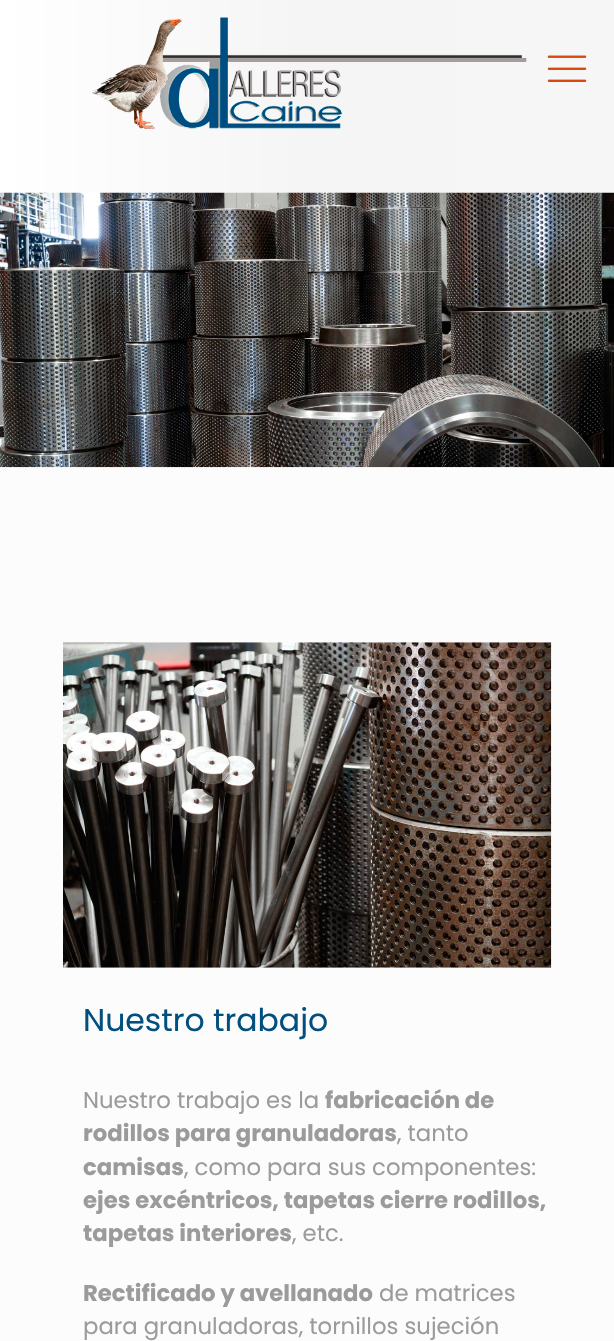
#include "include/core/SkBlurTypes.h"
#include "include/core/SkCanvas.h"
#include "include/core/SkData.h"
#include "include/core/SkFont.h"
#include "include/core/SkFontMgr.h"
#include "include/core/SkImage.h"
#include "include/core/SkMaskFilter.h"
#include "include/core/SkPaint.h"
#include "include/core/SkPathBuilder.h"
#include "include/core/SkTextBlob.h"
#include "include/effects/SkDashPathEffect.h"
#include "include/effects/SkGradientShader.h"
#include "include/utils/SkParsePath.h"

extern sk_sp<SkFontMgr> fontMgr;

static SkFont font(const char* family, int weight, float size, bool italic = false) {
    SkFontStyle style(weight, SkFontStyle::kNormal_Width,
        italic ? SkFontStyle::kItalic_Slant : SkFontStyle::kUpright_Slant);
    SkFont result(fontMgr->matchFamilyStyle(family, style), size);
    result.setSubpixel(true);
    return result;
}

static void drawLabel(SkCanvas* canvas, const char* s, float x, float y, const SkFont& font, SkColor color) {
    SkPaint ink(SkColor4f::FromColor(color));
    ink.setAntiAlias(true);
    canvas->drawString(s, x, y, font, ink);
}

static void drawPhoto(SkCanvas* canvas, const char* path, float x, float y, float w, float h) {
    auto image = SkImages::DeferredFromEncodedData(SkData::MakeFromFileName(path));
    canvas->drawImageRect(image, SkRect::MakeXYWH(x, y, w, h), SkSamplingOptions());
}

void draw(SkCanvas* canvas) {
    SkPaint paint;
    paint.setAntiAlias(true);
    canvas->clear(0xFFFCFCFC);
    {
        const SkColor colors[] = {0xFFFFFFFF, 0xFFF6F6F6, 0xFFF5F5F5, 0xFFF6F6F6};
        const float stops[] = {0, 0.45f, 0.49f, 1};
        const SkPoint ends[] = {{0, 96}, {614, 96}};
        paint.setShader(SkGradientShader::MakeLinear(ends, colors, stops, 4, SkTileMode::kClamp));
        paint.setAlpha(255);
    }
    canvas->drawRect(SkRect::MakeXYWH(0, 0, 614, 193), paint);
    drawPhoto(canvas, "assets/img1.png", 92, 17, 435, 112);
    drawPhoto(canvas, "assets/img2.png", 547, 55, 40, 27);
    drawPhoto(canvas, "assets/img3.png", 0, 192, 614, 276);
    drawPhoto(canvas, "assets/img4.png", 63, 642, 489, 326);
    SkFont font1 = font("Poppins", 400, 31.5f);
    drawLabel(canvas, "Nuestro trabajo", 83, 1031, font1, 0xFF004F7E);
    SkFont font2 = font("Poppins", 400, 22.75f);
    drawLabel(canvas, "Nuestro trabajo es la", 83, 1108, font2, 0xFF9B9B9B);
    SkFont font3 = font("Poppins", 700, 22.75f);
    drawLabel(canvas, "fabricación de", 325, 1108, font3, 0xFF9B9B9B);
    drawLabel(canvas, "rodillos para granuladoras", 83, 1141, font3, 0xFF9B9B9B);
    drawLabel(canvas, ", tanto", 397, 1141, font2, 0xFF9B9B9B);
    drawLabel(canvas, "camisas", 83, 1175, font3, 0xFF9B9B9B);
    drawLabel(canvas, ", como para sus componentes:", 184, 1175, font2, 0xFF9B9B9B);
    drawLabel(canvas, "ejes excéntricos, tapetas cierre rodillos,", 83, 1208, font3, 0xFF9B9B9B);
    drawLabel(canvas, "tapetas interiores", 83, 1241, font3, 0xFF9B9B9B);
    drawLabel(canvas, ", etc.", 292, 1241, font2, 0xFF9B9B9B);
    drawLabel(canvas, "Rectificado y avellanado", 83, 1301, font3, 0xFF9B9B9B);
    drawLabel(canvas, "de matrices", 379, 1301, font2, 0xFF9B9B9B);
    drawLabel(canvas, "para granuladoras, tornillos sujeción", 83, 1334, font2, 0xFF9B9B9B);
}
